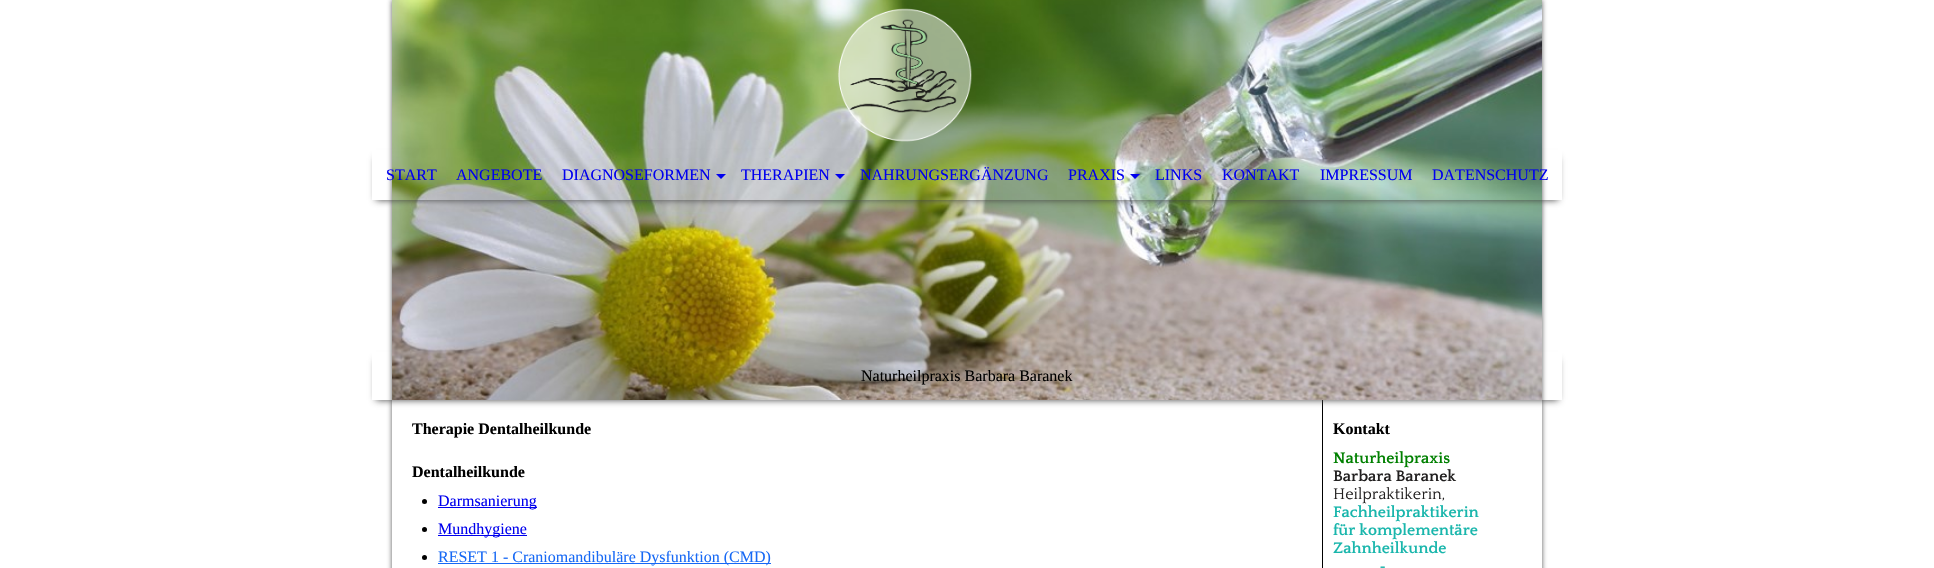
#include "include/core/SkBlurTypes.h"
#include "include/core/SkCanvas.h"
#include "include/core/SkData.h"
#include "include/core/SkFont.h"
#include "include/core/SkFontMgr.h"
#include "include/core/SkImage.h"
#include "include/core/SkMaskFilter.h"
#include "include/core/SkPaint.h"
#include "include/core/SkPathBuilder.h"
#include "include/core/SkTextBlob.h"
#include "include/effects/SkDashPathEffect.h"
#include "include/effects/SkGradientShader.h"
#include "include/utils/SkParsePath.h"

extern sk_sp<SkFontMgr> fontMgr;

static SkFont font(const char* family, int weight, float size, bool italic = false) {
    SkFontStyle style(weight, SkFontStyle::kNormal_Width,
        italic ? SkFontStyle::kItalic_Slant : SkFontStyle::kUpright_Slant);
    SkFont result(fontMgr->matchFamilyStyle(family, style), size);
    result.setSubpixel(true);
    return result;
}

static void drawLabel(SkCanvas* canvas, const char* s, float x, float y, const SkFont& font, SkColor color) {
    SkPaint ink(SkColor4f::FromColor(color));
    ink.setAntiAlias(true);
    canvas->drawString(s, x, y, font, ink);
}

static void fillRect(SkCanvas* canvas, float x, float y, float w, float h, SkColor color) {
    SkPaint ink(SkColor4f::FromColor(color));
    ink.setAntiAlias(true);
    canvas->drawRect(SkRect::MakeXYWH(x, y, w, h), ink);
}

static void drawPhoto(SkCanvas* canvas, const char* path, float x, float y, float w, float h) {
    auto image = SkImages::DeferredFromEncodedData(SkData::MakeFromFileName(path));
    canvas->drawImageRect(image, SkRect::MakeXYWH(x, y, w, h), SkSamplingOptions());
}

static SkPath parsePath(const char* data, bool evenOdd = false) {
    SkPath result = *SkParsePath::FromSVGString(data);
    if (evenOdd) result.setFillType(SkPathFillType::kEvenOdd);
    return result;
}

void draw(SkCanvas* canvas) {
    SkPaint paint;
    paint.setAntiAlias(true);
    canvas->clear(0xFFFFFFFF);
    canvas->save();
    canvas->clipPath(parsePath("M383 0H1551V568H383ZM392 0H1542V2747H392Z", true), true);
    paint.setColor(0xB3141414);
    paint.setMaskFilter(SkMaskFilter::MakeBlur(kNormal_SkBlurStyle, 2.5f));
    canvas->drawRect(SkRect::MakeXYWH(392, 0, 1150, 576), paint);
    paint.setMaskFilter(nullptr);
    canvas->restore();
    drawPhoto(canvas, "assets/img1.png", 392, 0, 1150, 400);
    drawPhoto(canvas, "assets/img2.png", 838, 8, 134, 134);
    canvas->save();
    canvas->clipPath(parsePath("M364 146H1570V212H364ZM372 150H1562V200H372Z", true), true);
    paint.setColor(0xFF444444);
    paint.setMaskFilter(SkMaskFilter::MakeBlur(kNormal_SkBlurStyle, 3.5f));
    canvas->drawRect(SkRect::MakeXYWH(376, 158, 1182, 42), paint);
    paint.setMaskFilter(nullptr);
    canvas->restore();
    SkFont font1 = font("Liberation Serif", 400, 16);
    drawLabel(canvas, "START", 386, 180, font1, 0xFF0000EE);
    drawLabel(canvas, "ANGEBOTE", 456, 180, font1, 0xFF0000EE);
    drawLabel(canvas, "DIAGNOSEFORMEN", 562, 180, font1, 0xFF0000EE);
    paint.setColor(0xFF0000EE);
    canvas->drawPath(parsePath("M716 174H726L721 179Z"), paint);
    drawLabel(canvas, "THERAPIEN", 741, 180, font1, 0xFF0000EE);
    canvas->drawPath(parsePath("M835 174H845L840 179Z"), paint);
    drawLabel(canvas, "NAHRUNGSERGÄNZUNG", 860, 180, font1, 0xFF0000EE);
    drawLabel(canvas, "PRAXIS", 1068, 180, font1, 0xFF0000EE);
    canvas->drawPath(parsePath("M1130 174H1140L1135 179Z"), paint);
    drawLabel(canvas, "LINKS", 1155, 180, font1, 0xFF0000EE);
    drawLabel(canvas, "KONTAKT", 1222, 180, font1, 0xFF0000EE);
    drawLabel(canvas, "IMPRESSUM", 1320, 180, font1, 0xFF0000EE);
    drawLabel(canvas, "DATENSCHUTZ", 1432, 180, font1, 0xFF0000EE);
    fillRect(canvas, 1322, 400, 1, 168, 0xFF000000);
    canvas->save();
    canvas->clipPath(parsePath("M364 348H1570V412H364ZM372 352H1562V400H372Z", true), true);
    paint.setColor(0xFF444444);
    paint.setMaskFilter(SkMaskFilter::MakeBlur(kNormal_SkBlurStyle, 3.5f));
    canvas->drawRect(SkRect::MakeXYWH(376, 360, 1182, 40), paint);
    paint.setMaskFilter(nullptr);
    canvas->restore();
    drawLabel(canvas, "Naturheilpraxis Barbara Baranek", 861, 381, font1, 0xFF000000);
    SkFont font2 = font("Liberation Serif", 700, 16);
    drawLabel(canvas, "Therapie Dentalheilkunde", 412, 434, font2, 0xFF000000);
    drawLabel(canvas, "Dentalheilkunde", 412, 477, font2, 0xFF000000);
    paint.setColor(0xFF000000);
    canvas->drawCircle(424.5f, 501.5f, 2.5f, paint);
    fillRect(canvas, 438, 507, 99, 1, 0xFF0000EE);
    drawLabel(canvas, "Darmsanierung", 438, 506, font1, 0xFF0000EE);
    canvas->drawCircle(424.5f, 529.5f, 2.5f, paint);
    fillRect(canvas, 438, 535, 89, 1, 0xFF0000EE);
    drawLabel(canvas, "Mundhygiene", 438, 534, font1, 0xFF0000EE);
    canvas->drawCircle(424.5f, 557.5f, 2.5f, paint);
    fillRect(canvas, 438, 563, 333, 1, 0xFF1769F5);
    drawLabel(canvas, "RESET 1 - Craniomandibuläre Dysfunktion (CMD)", 438, 562, font1, 0xFF1769F5);
    drawLabel(canvas, "Kontakt", 1333, 434, font2, 0xFF000000);
    SkFont font3 = font("Quattrocento", 700, 16);
    drawLabel(canvas, "Naturheilpraxis", 1333, 463, font3, 0xFF008000);
    drawLabel(canvas, "Barbara Baranek", 1333, 481, font3, 0xFF222020);
    SkFont font4 = font("Quattrocento", 400, 16);
    drawLabel(canvas, "Heilpraktikerin,", 1333, 499, font4, 0xFF222020);
    drawLabel(canvas, "Fachheilpraktikerin", 1333, 517, font3, 0xFF19B6AC);
    drawLabel(canvas, "für komplementäre", 1333, 535, font3, 0xFF19B6AC);
    drawLabel(canvas, "Zahnheilkunde", 1333, 553, font3, 0xFF19B6AC);
    drawLabel(canvas, "-", 1380, 571, font2, 0xFF19B6AC);
}
